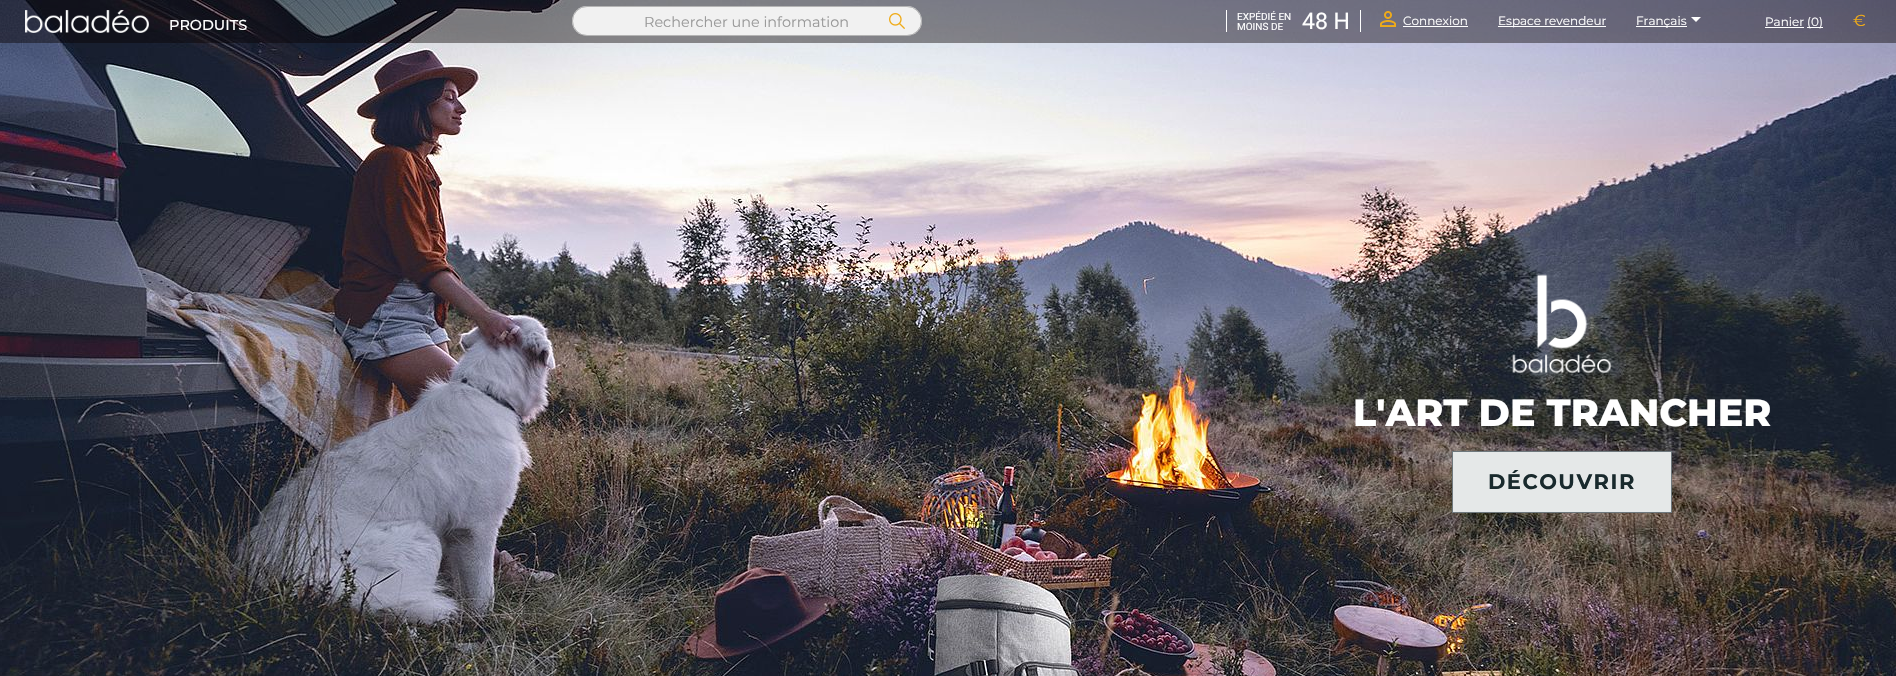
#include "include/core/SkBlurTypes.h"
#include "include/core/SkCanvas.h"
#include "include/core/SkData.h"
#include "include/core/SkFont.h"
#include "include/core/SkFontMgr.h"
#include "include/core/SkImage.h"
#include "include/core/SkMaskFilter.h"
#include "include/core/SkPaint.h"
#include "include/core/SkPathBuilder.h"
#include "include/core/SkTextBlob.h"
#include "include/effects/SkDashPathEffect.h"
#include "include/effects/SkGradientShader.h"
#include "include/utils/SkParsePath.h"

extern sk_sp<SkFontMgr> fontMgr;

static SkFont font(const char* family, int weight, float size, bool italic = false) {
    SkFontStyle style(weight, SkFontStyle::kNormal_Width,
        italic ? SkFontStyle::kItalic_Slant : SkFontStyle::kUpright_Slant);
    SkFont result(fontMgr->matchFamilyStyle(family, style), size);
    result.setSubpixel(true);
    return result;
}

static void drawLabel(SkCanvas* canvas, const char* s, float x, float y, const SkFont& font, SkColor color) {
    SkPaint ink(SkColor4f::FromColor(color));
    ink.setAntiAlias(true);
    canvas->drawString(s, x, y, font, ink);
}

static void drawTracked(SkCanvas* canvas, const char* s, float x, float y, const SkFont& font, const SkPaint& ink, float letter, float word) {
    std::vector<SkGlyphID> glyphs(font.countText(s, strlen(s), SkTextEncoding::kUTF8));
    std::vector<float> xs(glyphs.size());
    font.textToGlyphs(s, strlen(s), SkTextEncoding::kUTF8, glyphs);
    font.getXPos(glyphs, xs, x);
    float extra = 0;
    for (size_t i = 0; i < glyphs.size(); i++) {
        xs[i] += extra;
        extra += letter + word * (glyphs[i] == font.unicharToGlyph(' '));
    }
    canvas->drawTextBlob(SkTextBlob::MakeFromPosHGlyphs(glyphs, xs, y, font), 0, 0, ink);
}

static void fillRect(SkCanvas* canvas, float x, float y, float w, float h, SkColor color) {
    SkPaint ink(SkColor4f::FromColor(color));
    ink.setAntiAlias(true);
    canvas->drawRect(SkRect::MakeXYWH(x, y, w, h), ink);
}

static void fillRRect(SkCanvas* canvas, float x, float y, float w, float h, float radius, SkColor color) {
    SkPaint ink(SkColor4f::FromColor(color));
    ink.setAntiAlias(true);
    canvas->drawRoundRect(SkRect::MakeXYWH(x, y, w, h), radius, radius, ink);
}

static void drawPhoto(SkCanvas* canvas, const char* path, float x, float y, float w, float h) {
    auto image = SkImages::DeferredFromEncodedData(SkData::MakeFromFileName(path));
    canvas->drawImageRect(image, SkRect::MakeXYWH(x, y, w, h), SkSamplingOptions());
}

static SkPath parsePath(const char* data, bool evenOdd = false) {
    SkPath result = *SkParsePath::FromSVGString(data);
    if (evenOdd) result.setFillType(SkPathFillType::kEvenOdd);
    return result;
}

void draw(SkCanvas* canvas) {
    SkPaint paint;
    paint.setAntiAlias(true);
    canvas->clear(0xFFFFFFFF);
    drawPhoto(canvas, "assets/img4.png", 0, 0, 1896, 676);
    fillRect(canvas, 0, 0, 1896, 43, 0x6E060000);
    drawPhoto(canvas, "assets/img1.png", 25, 10, 124, 23);
    SkFont font1 = font("Montserrat", 500, 14.4f);
    drawLabel(canvas, "PRODUITS", 169, 30, font1, 0xFFFFFFFF);
    fillRRect(canvas, 572, 6, 350, 30, 15, 0xFFF1F1F1);
    paint.setStroke(true);
    paint.setStrokeWidth(1);
    paint.setColor(0x40000000);
    canvas->drawRoundRect(SkRect::MakeXYWH(572.5f, 6.5f, 349, 29), 14.5f, 14.5f, paint);
    SkFont font2 = font("Montserrat", 400, 14.4f);
    drawLabel(canvas, "Rechercher une information", 644, 27, font2, 0xFF999999);
    drawPhoto(canvas, "assets/img2.png", 889, 13, 16, 16);
    fillRect(canvas, 1360, 10, 1, 22, 0xFFFFFFFF);
    fillRect(canvas, 1226, 10, 1, 22, 0xFFFFFFFF);
    SkFont font3 = font("Roboto", 400, 10);
    drawLabel(canvas, "EXPÉDIÉ EN", 1237, 20, font3, 0xFFFFFFFF);
    drawLabel(canvas, "MOINS DE", 1237, 30, font3, 0xFFFFFFFF);
    SkFont font4 = font("Roboto", 400, 23);
    drawLabel(canvas, "48 H", 1302, 29, font4, 0xFFFFFFFF);
    drawPhoto(canvas, "assets/img3.png", 1380, 11, 16, 16);
    SkFont font5 = font("Montserrat", 400, 12);
    drawLabel(canvas, "Connexion", 1403, 25, font5, 0xFFFFFFFF);
    fillRect(canvas, 1403, 26, 65, 1, 0xFFFFFFFF);
    fillRect(canvas, 1498, 26, 108, 1, 0xFFFFFFFF);
    drawLabel(canvas, "Espace revendeur", 1498, 25, font5, 0xFFFFFFFF);
    fillRect(canvas, 1636, 26, 51, 1, 0xFFFFFFFF);
    drawLabel(canvas, "Français", 1636, 25, font5, 0xFFFFFFFF);
    paint.setStroke(false);
    paint.setColor(0xFFFFFFFF);
    canvas->drawPath(parsePath("M1691 17H1701L1696 22Z"), paint);
    drawLabel(canvas, "Panier", 1765, 26, font5, 0xFFFFFFFF);
    fillRect(canvas, 1765, 27, 39, 1, 0xFFFFFFFF);
    fillRect(canvas, 1807, 27, 16, 1, 0xFFFFFFFF);
    drawLabel(canvas, "(0)", 1807, 26, font5, 0xFFFFFFFF);
    SkFont font6 = font("Montserrat", 400, 16);
    drawLabel(canvas, "€", 1853, 26, font6, 0xFFEFAB19);
    drawPhoto(canvas, "assets/img5.png", 1512, 274, 100, 100);
    SkFont font7 = font("Montserrat", 800, 38);
    drawLabel(canvas, "L'ART DE TRANCHER", 1353, 426, font7, 0xFFFFFFFF);
    paint.setColor(0xFFE5E8E8);
    canvas->drawRect(SkRect::MakeXYWH(1452.5f, 451.5f, 219, 61), paint);
    paint.setStroke(true);
    paint.setColor(0xFF6E787D);
    canvas->drawRect(SkRect::MakeXYWH(1452.5f, 451.5f, 219, 61), paint);
    SkFont font8 = font("Montserrat", 700, 21);
    paint.setStroke(false);
    paint.setColor(0xFF192A2D);
    drawTracked(canvas, "DÉCOUVRIR", 1488, 489, font8, paint, 1.5f, 0);
}
